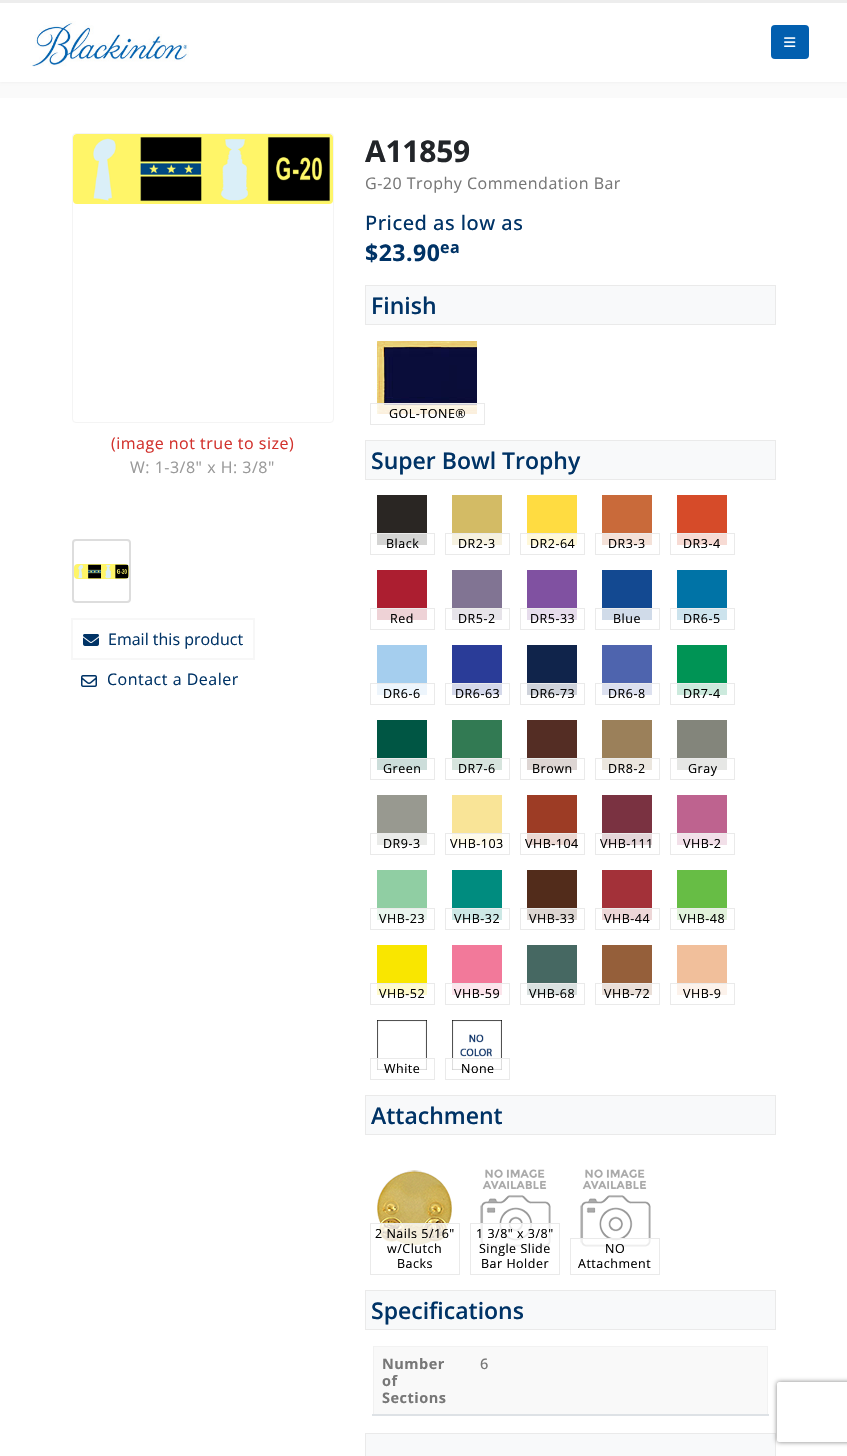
#include "include/core/SkBlurTypes.h"
#include "include/core/SkCanvas.h"
#include "include/core/SkData.h"
#include "include/core/SkFont.h"
#include "include/core/SkFontMgr.h"
#include "include/core/SkImage.h"
#include "include/core/SkMaskFilter.h"
#include "include/core/SkPaint.h"
#include "include/core/SkPathBuilder.h"
#include "include/core/SkTextBlob.h"
#include "include/effects/SkDashPathEffect.h"
#include "include/effects/SkGradientShader.h"
#include "include/utils/SkParsePath.h"

extern sk_sp<SkFontMgr> fontMgr;

static SkFont font(const char* family, int weight, float size, bool italic = false) {
    SkFontStyle style(weight, SkFontStyle::kNormal_Width,
        italic ? SkFontStyle::kItalic_Slant : SkFontStyle::kUpright_Slant);
    SkFont result(fontMgr->matchFamilyStyle(family, style), size);
    result.setSubpixel(true);
    return result;
}

static void drawLabel(SkCanvas* canvas, const char* s, float x, float y, const SkFont& font, SkColor color) {
    SkPaint ink(SkColor4f::FromColor(color));
    ink.setAntiAlias(true);
    canvas->drawString(s, x, y, font, ink);
}

static void drawTracked(SkCanvas* canvas, const char* s, float x, float y, const SkFont& font, const SkPaint& ink, float letter, float word) {
    std::vector<SkGlyphID> glyphs(font.countText(s, strlen(s), SkTextEncoding::kUTF8));
    std::vector<float> xs(glyphs.size());
    font.textToGlyphs(s, strlen(s), SkTextEncoding::kUTF8, glyphs);
    font.getXPos(glyphs, xs, x);
    float extra = 0;
    for (size_t i = 0; i < glyphs.size(); i++) {
        xs[i] += extra;
        extra += letter + word * (glyphs[i] == font.unicharToGlyph(' '));
    }
    canvas->drawTextBlob(SkTextBlob::MakeFromPosHGlyphs(glyphs, xs, y, font), 0, 0, ink);
}

static void fillRect(SkCanvas* canvas, float x, float y, float w, float h, SkColor color) {
    SkPaint ink(SkColor4f::FromColor(color));
    ink.setAntiAlias(true);
    canvas->drawRect(SkRect::MakeXYWH(x, y, w, h), ink);
}

static void fillRRect(SkCanvas* canvas, float x, float y, float w, float h, float radius, SkColor color) {
    SkPaint ink(SkColor4f::FromColor(color));
    ink.setAntiAlias(true);
    canvas->drawRoundRect(SkRect::MakeXYWH(x, y, w, h), radius, radius, ink);
}

static void drawPhoto(SkCanvas* canvas, const char* path, float x, float y, float w, float h) {
    auto image = SkImages::DeferredFromEncodedData(SkData::MakeFromFileName(path));
    canvas->drawImageRect(image, SkRect::MakeXYWH(x, y, w, h), SkSamplingOptions());
}

static SkPath parsePath(const char* data, bool evenOdd = false) {
    SkPath result = *SkParsePath::FromSVGString(data);
    if (evenOdd) result.setFillType(SkPathFillType::kEvenOdd);
    return result;
}

void draw(SkCanvas* canvas) {
    SkPaint paint;
    paint.setAntiAlias(true);
    canvas->clear(0xFFFFFFFF);
    fillRect(canvas, 0, 82, 847, 16, 0xFFFAFAFA);
    paint.setColor(0x0F000000);
    paint.setMaskFilter(SkMaskFilter::MakeBlur(kNormal_SkBlurStyle, 1.5f));
    canvas->drawRect(SkRect::MakeXYWH(0, 0, 847, 82), paint);
    paint.setMaskFilter(nullptr);
    fillRect(canvas, 0, 3, 847, 79, 0xFFFFFFFF);
    fillRect(canvas, 0, 0, 847, 3, 0xFFEDEDED);
    drawPhoto(canvas, "assets/img1.png", 30, 21, 159, 46);
    fillRRect(canvas, 771, 25, 38, 34, 4, 0xFF025FAF);
    drawPhoto(canvas, "assets/img2.png", 784, 37, 12, 10);
    paint.setStroke(true);
    paint.setStrokeWidth(1);
    paint.setColor(0xFFF4F4F4);
    canvas->drawRoundRect(SkRect::MakeXYWH(72.5f, 133.5f, 261, 289), 3.5f, 3.5f, paint);
    drawPhoto(canvas, "assets/img3.png", 73, 134, 260, 70);
    SkFont font1 = font("Open Sans", 400, 16);
    paint.setStroke(false);
    paint.setColor(0xFFD2322D);
    drawTracked(canvas, "(image not true to size)", 111, 449, font1, paint, 0.5f, 0);
    paint.setColor(0xFF999999);
    drawTracked(canvas, "W: 1-3/8\" x H: 3/8\"", 130, 473, font1, paint, 0.5f, 0);
    paint.setStroke(true);
    paint.setStrokeWidth(2);
    paint.setColor(0xFFDDDDDD);
    canvas->drawRoundRect(SkRect::MakeXYWH(73, 540, 57, 62), 3, 3, paint);
    drawPhoto(canvas, "assets/img4.png", 74, 564, 55, 15);
    paint.setColor(0xFFF7F7F7);
    canvas->drawRect(SkRect::MakeXYWH(72, 619, 182, 40), paint);
    drawPhoto(canvas, "assets/img5.png", 83, 634, 16, 12);
    drawLabel(canvas, "Email this product", 108, 645, font1, 0xFF003366);
    drawPhoto(canvas, "assets/img6.png", 81, 675, 16, 12);
    paint.setStroke(false);
    paint.setColor(0xFF003366);
    drawTracked(canvas, "Contact a Dealer", 107, 685, font1, paint, 0.5f, 0);
    SkFont font2 = font("Open Sans", 700, 30);
    paint.setColor(0xFF222529);
    drawTracked(canvas, "A11859", 365, 162, font2, paint, -0.25f, 0);
    paint.setColor(0xFF777777);
    drawTracked(canvas, "G-20 Trophy Commendation Bar", 365, 189, font1, paint, 0.5f, 0);
    SkFont font3 = font("Open Sans", 500, 20);
    paint.setColor(0xFF003366);
    drawTracked(canvas, "Priced as low as", 365, 230, font3, paint, 0.5f, 0);
    SkFont font4 = font("Open Sans", 700, 23);
    drawTracked(canvas, "$23.90", 365, 261, font4, paint, 0.5f, 0);
    SkFont font5 = font("Open Sans", 700, 16);
    drawTracked(canvas, "ea", 440, 253, font5, paint, 0.5f, 0);
    paint.setColor(0xFFF8F9FA);
    canvas->drawRect(SkRect::MakeXYWH(365.5f, 285.5f, 410, 39), paint);
    paint.setStroke(true);
    paint.setStrokeWidth(1);
    paint.setColor(0xFFEAEAEA);
    canvas->drawRect(SkRect::MakeXYWH(365.5f, 285.5f, 410, 39), paint);
    SkFont font6 = font("Open Sans", 600, 23);
    drawLabel(canvas, "Finish", 371, 314, font6, 0xFF003366);
    drawPhoto(canvas, "assets/img7.png", 377, 341, 100, 73);
    fillRect(canvas, 377, 404, 100, 10, 0xCCFFFFFF);
    canvas->drawRect(SkRect::MakeXYWH(370.5f, 403.5f, 114, 21), paint);
    SkFont font7 = font("Open Sans", 400, 12.5f);
    paint.setStroke(false);
    paint.setColor(0xFF000000);
    drawTracked(canvas, "GOL-TONE®", 389, 418, font7, paint, 0.5f, 0);
    paint.setColor(0xFFF8F9FA);
    canvas->drawRect(SkRect::MakeXYWH(365.5f, 440.5f, 410, 39), paint);
    paint.setStroke(true);
    paint.setColor(0xFFEAEAEA);
    canvas->drawRect(SkRect::MakeXYWH(365.5f, 440.5f, 410, 39), paint);
    drawLabel(canvas, "Super Bowl Trophy", 371, 469, font6, 0xFF003366);
    fillRect(canvas, 377, 495, 50, 38, 0xFF2A2623);
    fillRect(canvas, 377, 534, 50, 11, 0xFFD4D4D3);
    canvas->drawRect(SkRect::MakeXYWH(370.5f, 533.5f, 64, 21), paint);
    paint.setStroke(false);
    paint.setColor(0xFF000000);
    drawTracked(canvas, "Black", 386, 548, font7, paint, 0.5f, 0);
    fillRect(canvas, 452, 495, 50, 38, 0xFFD3BB65);
    fillRect(canvas, 452, 534, 50, 11, 0xFFF6F1E0);
    paint.setStroke(true);
    paint.setColor(0xFFEAEAEA);
    canvas->drawRect(SkRect::MakeXYWH(445.5f, 533.5f, 64, 21), paint);
    paint.setStroke(false);
    paint.setColor(0xFF000000);
    drawTracked(canvas, "DR2-3", 458, 548, font7, paint, 0.5f, 0);
    fillRect(canvas, 527, 495, 50, 38, 0xFFFFDC41);
    fillRect(canvas, 527, 534, 50, 11, 0xFFFFF8D9);
    paint.setStroke(true);
    paint.setColor(0xFFEAEAEA);
    canvas->drawRect(SkRect::MakeXYWH(520.5f, 533.5f, 64, 21), paint);
    paint.setStroke(false);
    paint.setColor(0xFF000000);
    drawTracked(canvas, "DR2-64", 530, 548, font7, paint, 0.5f, 0);
    fillRect(canvas, 602, 495, 50, 38, 0xFFC96A3A);
    fillRect(canvas, 602, 534, 50, 11, 0xFFF4E1D8);
    paint.setStroke(true);
    paint.setColor(0xFFEAEAEA);
    canvas->drawRect(SkRect::MakeXYWH(595.5f, 533.5f, 64, 21), paint);
    paint.setStroke(false);
    paint.setColor(0xFF000000);
    drawTracked(canvas, "DR3-3", 608, 548, font7, paint, 0.5f, 0);
    fillRect(canvas, 677, 495, 50, 38, 0xFFD64B29);
    fillRect(canvas, 677, 534, 50, 11, 0xFFF7DBD4);
    paint.setStroke(true);
    paint.setColor(0xFFEAEAEA);
    canvas->drawRect(SkRect::MakeXYWH(670.5f, 533.5f, 64, 21), paint);
    paint.setStroke(false);
    paint.setColor(0xFF000000);
    drawTracked(canvas, "DR3-4", 683, 548, font7, paint, 0.5f, 0);
    fillRect(canvas, 377, 570, 50, 38, 0xFFAC1E30);
    fillRect(canvas, 377, 609, 50, 11, 0xFFEED2D6);
    paint.setStroke(true);
    paint.setColor(0xFFEAEAEA);
    canvas->drawRect(SkRect::MakeXYWH(370.5f, 608.5f, 64, 21), paint);
    paint.setStroke(false);
    paint.setColor(0xFF000000);
    drawTracked(canvas, "Red", 390, 623, font7, paint, 0.5f, 0);
    fillRect(canvas, 452, 570, 50, 38, 0xFF817493);
    fillRect(canvas, 452, 609, 50, 11, 0xFFE6E3E9);
    paint.setStroke(true);
    paint.setColor(0xFFEAEAEA);
    canvas->drawRect(SkRect::MakeXYWH(445.5f, 608.5f, 64, 21), paint);
    paint.setStroke(false);
    paint.setColor(0xFF000000);
    drawTracked(canvas, "DR5-2", 458, 623, font7, paint, 0.5f, 0);
    fillRect(canvas, 527, 570, 50, 38, 0xFF8051A1);
    fillRect(canvas, 527, 609, 50, 11, 0xFFE6DCEC);
    paint.setStroke(true);
    paint.setColor(0xFFEAEAEA);
    canvas->drawRect(SkRect::MakeXYWH(520.5f, 608.5f, 64, 21), paint);
    paint.setStroke(false);
    paint.setColor(0xFF000000);
    drawTracked(canvas, "DR5-33", 530, 623, font7, paint, 0.5f, 0);
    fillRect(canvas, 602, 570, 50, 38, 0xFF134991);
    fillRect(canvas, 602, 609, 50, 11, 0xFFD0DBE9);
    paint.setStroke(true);
    paint.setColor(0xFFEAEAEA);
    canvas->drawRect(SkRect::MakeXYWH(595.5f, 608.5f, 64, 21), paint);
    paint.setStroke(false);
    paint.setColor(0xFF000000);
    drawTracked(canvas, "Blue", 613, 623, font7, paint, 0.5f, 0);
    fillRect(canvas, 677, 570, 50, 38, 0xFF0073A6);
    fillRect(canvas, 677, 609, 50, 11, 0xFFCCE3ED);
    paint.setStroke(true);
    paint.setColor(0xFFEAEAEA);
    canvas->drawRect(SkRect::MakeXYWH(670.5f, 608.5f, 64, 21), paint);
    paint.setStroke(false);
    paint.setColor(0xFF000000);
    drawTracked(canvas, "DR6-5", 683, 623, font7, paint, 0.5f, 0);
    fillRect(canvas, 377, 645, 50, 38, 0xFFA5CEEE);
    fillRect(canvas, 377, 684, 50, 11, 0xFFEDF5FC);
    paint.setStroke(true);
    paint.setColor(0xFFEAEAEA);
    canvas->drawRect(SkRect::MakeXYWH(370.5f, 683.5f, 64, 21), paint);
    paint.setStroke(false);
    paint.setColor(0xFF000000);
    drawTracked(canvas, "DR6-6", 383, 698, font7, paint, 0.5f, 0);
    fillRect(canvas, 452, 645, 50, 38, 0xFF2A3C98);
    fillRect(canvas, 452, 684, 50, 11, 0xFFD4D8EA);
    paint.setStroke(true);
    paint.setColor(0xFFEAEAEA);
    canvas->drawRect(SkRect::MakeXYWH(445.5f, 683.5f, 64, 21), paint);
    paint.setStroke(false);
    paint.setColor(0xFF000000);
    drawTracked(canvas, "DR6-63", 455, 698, font7, paint, 0.5f, 0);
    fillRect(canvas, 527, 645, 50, 38, 0xFF10244B);
    fillRect(canvas, 527, 684, 50, 11, 0xFFCFD3DB);
    paint.setStroke(true);
    paint.setColor(0xFFEAEAEA);
    canvas->drawRect(SkRect::MakeXYWH(520.5f, 683.5f, 64, 21), paint);
    paint.setStroke(false);
    paint.setColor(0xFF000000);
    drawTracked(canvas, "DR6-73", 530, 698, font7, paint, 0.5f, 0);
    fillRect(canvas, 602, 645, 50, 38, 0xFF4E64AE);
    fillRect(canvas, 602, 684, 50, 11, 0xFFDCE0EF);
    paint.setStroke(true);
    paint.setColor(0xFFEAEAEA);
    canvas->drawRect(SkRect::MakeXYWH(595.5f, 683.5f, 64, 21), paint);
    paint.setStroke(false);
    paint.setColor(0xFF000000);
    drawTracked(canvas, "DR6-8", 608, 698, font7, paint, 0.5f, 0);
    fillRect(canvas, 677, 645, 50, 38, 0xFF009455);
    fillRect(canvas, 677, 684, 50, 11, 0xFFCCEADD);
    paint.setStroke(true);
    paint.setColor(0xFFEAEAEA);
    canvas->drawRect(SkRect::MakeXYWH(670.5f, 683.5f, 64, 21), paint);
    paint.setStroke(false);
    paint.setColor(0xFF000000);
    drawTracked(canvas, "DR7-4", 683, 698, font7, paint, 0.5f, 0);
    fillRect(canvas, 377, 720, 50, 38, 0xFF005644);
    fillRect(canvas, 377, 759, 50, 11, 0xFFCCDDDA);
    paint.setStroke(true);
    paint.setColor(0xFFEAEAEA);
    canvas->drawRect(SkRect::MakeXYWH(370.5f, 758.5f, 64, 21), paint);
    paint.setStroke(false);
    paint.setColor(0xFF000000);
    drawTracked(canvas, "Green", 383, 773, font7, paint, 0.5f, 0);
    fillRect(canvas, 452, 720, 50, 38, 0xFF327A53);
    fillRect(canvas, 452, 759, 50, 11, 0xFFD6E4DD);
    paint.setStroke(true);
    paint.setColor(0xFFEAEAEA);
    canvas->drawRect(SkRect::MakeXYWH(445.5f, 758.5f, 64, 21), paint);
    paint.setStroke(false);
    paint.setColor(0xFF000000);
    drawTracked(canvas, "DR7-6", 458, 773, font7, paint, 0.5f, 0);
    fillRect(canvas, 527, 720, 50, 38, 0xFF542D24);
    fillRect(canvas, 527, 759, 50, 11, 0xFFDDD5D3);
    paint.setStroke(true);
    paint.setColor(0xFFEAEAEA);
    canvas->drawRect(SkRect::MakeXYWH(520.5f, 758.5f, 64, 21), paint);
    paint.setStroke(false);
    paint.setColor(0xFF000000);
    drawTracked(canvas, "Brown", 532, 773, font7, paint, 0.5f, 0);
    fillRect(canvas, 602, 720, 50, 38, 0xFF9B805A);
    fillRect(canvas, 602, 759, 50, 11, 0xFFEBE6DE);
    paint.setStroke(true);
    paint.setColor(0xFFEAEAEA);
    canvas->drawRect(SkRect::MakeXYWH(595.5f, 758.5f, 64, 21), paint);
    paint.setStroke(false);
    paint.setColor(0xFF000000);
    drawTracked(canvas, "DR8-2", 608, 773, font7, paint, 0.5f, 0);
    fillRect(canvas, 677, 720, 50, 38, 0xFF83857B);
    fillRect(canvas, 677, 759, 50, 11, 0xFFE6E7E5);
    paint.setStroke(true);
    paint.setColor(0xFFEAEAEA);
    canvas->drawRect(SkRect::MakeXYWH(670.5f, 758.5f, 64, 21), paint);
    paint.setStroke(false);
    paint.setColor(0xFF000000);
    drawTracked(canvas, "Gray", 688, 773, font7, paint, 0.5f, 0);
    fillRect(canvas, 377, 795, 50, 38, 0xFF989990);
    fillRect(canvas, 377, 834, 50, 11, 0xFFEAEBE9);
    paint.setStroke(true);
    paint.setColor(0xFFEAEAEA);
    canvas->drawRect(SkRect::MakeXYWH(370.5f, 833.5f, 64, 21), paint);
    paint.setStroke(false);
    paint.setColor(0xFF000000);
    drawTracked(canvas, "DR9-3", 383, 848, font7, paint, 0.5f, 0);
    fillRect(canvas, 452, 795, 50, 38, 0xFFF9E497);
    fillRect(canvas, 452, 834, 50, 11, 0xFFFEFAEA);
    paint.setStroke(true);
    paint.setColor(0xFFEAEAEA);
    canvas->drawRect(SkRect::MakeXYWH(445.5f, 833.5f, 64, 21), paint);
    paint.setStroke(false);
    paint.setColor(0xFF000000);
    drawTracked(canvas, "VHB-103", 450, 848, font7, paint, 0.5f, 0);
    fillRect(canvas, 527, 795, 50, 38, 0xFF9D3C25);
    fillRect(canvas, 527, 834, 50, 11, 0xFFEBD8D3);
    paint.setStroke(true);
    paint.setColor(0xFFEAEAEA);
    canvas->drawRect(SkRect::MakeXYWH(520.5f, 833.5f, 64, 21), paint);
    paint.setStroke(false);
    paint.setColor(0xFF000000);
    drawTracked(canvas, "VHB-104", 525, 848, font7, paint, 0.5f, 0);
    fillRect(canvas, 602, 795, 50, 38, 0xFF7A3241);
    fillRect(canvas, 602, 834, 50, 11, 0xFFE4D6D9);
    paint.setStroke(true);
    paint.setColor(0xFFEAEAEA);
    canvas->drawRect(SkRect::MakeXYWH(595.5f, 833.5f, 64, 21), paint);
    paint.setStroke(false);
    paint.setColor(0xFF000000);
    drawTracked(canvas, "VHB-111", 600, 848, font7, paint, 0.5f, 0);
    fillRect(canvas, 677, 795, 50, 38, 0xFFBE638F);
    fillRect(canvas, 677, 834, 50, 11, 0xFFF2E0E9);
    paint.setStroke(true);
    paint.setColor(0xFFEAEAEA);
    canvas->drawRect(SkRect::MakeXYWH(670.5f, 833.5f, 64, 21), paint);
    paint.setStroke(false);
    paint.setColor(0xFF000000);
    drawTracked(canvas, "VHB-2", 683, 848, font7, paint, 0.5f, 0);
    fillRect(canvas, 377, 870, 50, 38, 0xFF90CEA3);
    fillRect(canvas, 377, 909, 50, 11, 0xFFE9F5ED);
    paint.setStroke(true);
    paint.setColor(0xFFEAEAEA);
    canvas->drawRect(SkRect::MakeXYWH(370.5f, 908.5f, 64, 21), paint);
    paint.setStroke(false);
    paint.setColor(0xFF000000);
    drawTracked(canvas, "VHB-23", 379, 923, font7, paint, 0.5f, 0);
    fillRect(canvas, 452, 870, 50, 38, 0xFF008C7F);
    fillRect(canvas, 452, 909, 50, 11, 0xFFCCE8E5);
    paint.setStroke(true);
    paint.setColor(0xFFEAEAEA);
    canvas->drawRect(SkRect::MakeXYWH(445.5f, 908.5f, 64, 21), paint);
    paint.setStroke(false);
    paint.setColor(0xFF000000);
    drawTracked(canvas, "VHB-32", 454, 923, font7, paint, 0.5f, 0);
    fillRect(canvas, 527, 870, 50, 38, 0xFF522C1B);
    fillRect(canvas, 527, 909, 50, 11, 0xFFDCD5D1);
    paint.setStroke(true);
    paint.setColor(0xFFEAEAEA);
    canvas->drawRect(SkRect::MakeXYWH(520.5f, 908.5f, 64, 21), paint);
    paint.setStroke(false);
    paint.setColor(0xFF000000);
    drawTracked(canvas, "VHB-33", 529, 923, font7, paint, 0.5f, 0);
    fillRect(canvas, 602, 870, 50, 38, 0xFFA33139);
    fillRect(canvas, 602, 909, 50, 11, 0xFFEDD6D7);
    paint.setStroke(true);
    paint.setColor(0xFFEAEAEA);
    canvas->drawRect(SkRect::MakeXYWH(595.5f, 908.5f, 64, 21), paint);
    paint.setStroke(false);
    paint.setColor(0xFF000000);
    drawTracked(canvas, "VHB-44", 604, 923, font7, paint, 0.5f, 0);
    fillRect(canvas, 677, 870, 50, 38, 0xFF67BD45);
    fillRect(canvas, 677, 909, 50, 11, 0xFFE1F2DA);
    paint.setStroke(true);
    paint.setColor(0xFFEAEAEA);
    canvas->drawRect(SkRect::MakeXYWH(670.5f, 908.5f, 64, 21), paint);
    paint.setStroke(false);
    paint.setColor(0xFF000000);
    drawTracked(canvas, "VHB-48", 679, 923, font7, paint, 0.5f, 0);
    fillRect(canvas, 377, 945, 50, 38, 0xFFF9E600);
    fillRect(canvas, 377, 984, 50, 11, 0xFFFEFACC);
    paint.setStroke(true);
    paint.setColor(0xFFEAEAEA);
    canvas->drawRect(SkRect::MakeXYWH(370.5f, 983.5f, 64, 21), paint);
    paint.setStroke(false);
    paint.setColor(0xFF000000);
    drawTracked(canvas, "VHB-52", 379, 998, font7, paint, 0.5f, 0);
    fillRect(canvas, 452, 945, 50, 38, 0xFFF2799A);
    fillRect(canvas, 452, 984, 50, 11, 0xFFFCE4EB);
    paint.setStroke(true);
    paint.setColor(0xFFEAEAEA);
    canvas->drawRect(SkRect::MakeXYWH(445.5f, 983.5f, 64, 21), paint);
    paint.setStroke(false);
    paint.setColor(0xFF000000);
    drawTracked(canvas, "VHB-59", 454, 998, font7, paint, 0.5f, 0);
    fillRect(canvas, 527, 945, 50, 38, 0xFF466862);
    fillRect(canvas, 527, 984, 50, 11, 0xFFDAE1E0);
    paint.setStroke(true);
    paint.setColor(0xFFEAEAEA);
    canvas->drawRect(SkRect::MakeXYWH(520.5f, 983.5f, 64, 21), paint);
    paint.setStroke(false);
    paint.setColor(0xFF000000);
    drawTracked(canvas, "VHB-68", 529, 998, font7, paint, 0.5f, 0);
    fillRect(canvas, 602, 945, 50, 38, 0xFF955F3A);
    fillRect(canvas, 602, 984, 50, 11, 0xFFEADFD8);
    paint.setStroke(true);
    paint.setColor(0xFFEAEAEA);
    canvas->drawRect(SkRect::MakeXYWH(595.5f, 983.5f, 64, 21), paint);
    paint.setStroke(false);
    paint.setColor(0xFF000000);
    drawTracked(canvas, "VHB-72", 604, 998, font7, paint, 0.5f, 0);
    fillRect(canvas, 677, 945, 50, 38, 0xFFF1BF9B);
    fillRect(canvas, 677, 984, 50, 11, 0xFFFCF2EB);
    paint.setStroke(true);
    paint.setColor(0xFFEAEAEA);
    canvas->drawRect(SkRect::MakeXYWH(670.5f, 983.5f, 64, 21), paint);
    paint.setStroke(false);
    paint.setColor(0xFF000000);
    drawTracked(canvas, "VHB-9", 683, 998, font7, paint, 0.5f, 0);
    drawPhoto(canvas, "assets/img8.png", 377, 1020, 50, 50);
    fillRect(canvas, 377, 1059, 50, 11, 0xCCFFFFFF);
    paint.setStroke(true);
    paint.setColor(0xFFEAEAEA);
    canvas->drawRect(SkRect::MakeXYWH(370.5f, 1058.5f, 64, 21), paint);
    paint.setStroke(false);
    paint.setColor(0xFF000000);
    drawTracked(canvas, "White", 384, 1073, font7, paint, 0.5f, 0);
    drawPhoto(canvas, "assets/img9.png", 452, 1020, 50, 50);
    fillRect(canvas, 452, 1059, 50, 11, 0xCCFFFFFF);
    paint.setStroke(true);
    paint.setColor(0xFFEAEAEA);
    canvas->drawRect(SkRect::MakeXYWH(445.5f, 1058.5f, 64, 21), paint);
    paint.setStroke(false);
    paint.setColor(0xFF000000);
    drawTracked(canvas, "None", 461, 1073, font7, paint, 0.5f, 0);
    paint.setColor(0xFFF8F9FA);
    canvas->drawRect(SkRect::MakeXYWH(365.5f, 1095.5f, 410, 39), paint);
    paint.setStroke(true);
    paint.setColor(0xFFEAEAEA);
    canvas->drawRect(SkRect::MakeXYWH(365.5f, 1095.5f, 410, 39), paint);
    drawLabel(canvas, "Attachment", 371, 1124, font6, 0xFF003366);
    drawPhoto(canvas, "assets/img10.png", 377, 1170, 75, 75);
    fillRect(canvas, 378, 1224, 71, 21, 0xCCFFFFFF);
    canvas->drawRect(SkRect::MakeXYWH(370.5f, 1223.5f, 89, 51), paint);
    paint.setStroke(false);
    paint.setColor(0xFF000000);
    drawTracked(canvas, "2 Nails 5/16\"", 375, 1238, font7, paint, 0.5f, 0);
    drawTracked(canvas, "w/Clutch", 387, 1253, font7, paint, 0.5f, 0);
    drawTracked(canvas, "Backs", 397, 1268, font7, paint, 0.5f, 0);
    drawPhoto(canvas, "assets/img11.png", 480, 1169, 71, 78);
    fillRect(canvas, 480, 1224, 71, 23, 0xCCFFFFFF);
    paint.setStroke(true);
    paint.setColor(0xFFEAEAEA);
    canvas->drawRect(SkRect::MakeXYWH(470.5f, 1223.5f, 89, 51), paint);
    paint.setStroke(false);
    paint.setColor(0xFF000000);
    drawTracked(canvas, "1 3/8\" x 3/8\"", 476, 1238, font7, paint, 0.5f, 0);
    drawTracked(canvas, "Single Slide", 479, 1253, font7, paint, 0.5f, 0);
    drawTracked(canvas, "Bar Holder", 481, 1268, font7, paint, 0.5f, 0);
    drawPhoto(canvas, "assets/img11.png", 580, 1169, 71, 78);
    fillRect(canvas, 580, 1239, 71, 8, 0xCCFFFFFF);
    paint.setStroke(true);
    paint.setColor(0xFFEAEAEA);
    canvas->drawRect(SkRect::MakeXYWH(570.5f, 1238.5f, 89, 36), paint);
    paint.setStroke(false);
    paint.setColor(0xFF000000);
    drawTracked(canvas, "NO", 605, 1253, font7, paint, 0.5f, 0);
    drawTracked(canvas, "Attachment", 578, 1268, font7, paint, 0.5f, 0);
    paint.setColor(0xFFF8F9FA);
    canvas->drawRect(SkRect::MakeXYWH(365.5f, 1290.5f, 410, 39), paint);
    paint.setStroke(true);
    paint.setColor(0xFFEAEAEA);
    canvas->drawRect(SkRect::MakeXYWH(365.5f, 1290.5f, 410, 39), paint);
    drawLabel(canvas, "Specifications", 371, 1319, font6, 0xFF003366);
    fillRect(canvas, 374, 1346, 394, 68, 0xFFF2F2F2);
    fillRect(canvas, 374, 1347, 393, 67, 0xFFF9F9F9);
    fillRect(canvas, 373, 1346, 1, 69, 0xFFF1F1F1);
    SkFont font8 = font("Open Sans", 700, 14.5f);
    paint.setStroke(false);
    paint.setColor(0xFF777777);
    drawTracked(canvas, "Number", 382, 1369, font8, paint, 0.5f, 0);
    drawTracked(canvas, "of", 382, 1386, font8, paint, 0.5f, 0);
    drawTracked(canvas, "Sections", 382, 1403, font8, paint, 0.5f, 0);
    SkFont font9 = font("Open Sans", 500, 14.5f);
    drawTracked(canvas, "6", 480, 1369, font9, paint, 0.5f, 0);
    fillRect(canvas, 372, 1414, 397, 2, 0xFFDEE2E6);
    paint.setColor(0xFFF8F9FA);
    canvas->drawRect(SkRect::MakeXYWH(365.5f, 1433.5f, 410, 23), paint);
    paint.setStroke(true);
    paint.setColor(0xFFEAEAEA);
    canvas->drawRect(SkRect::MakeXYWH(365.5f, 1433.5f, 410, 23), paint);
    canvas->save();
    canvas->clipPath(parsePath("M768 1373H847V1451H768ZM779 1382H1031C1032 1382 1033 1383 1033 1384V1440C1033 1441 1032 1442 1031 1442H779C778 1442 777 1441 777 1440V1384C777 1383 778 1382 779 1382Z", true), true);
    paint.setStroke(false);
    paint.setColor(0xFF808080);
    paint.setMaskFilter(SkMaskFilter::MakeBlur(kNormal_SkBlurStyle, 2.5f));
    canvas->drawRoundRect(SkRect::MakeXYWH(777, 1382, 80, 60), 2, 2, paint);
    paint.setMaskFilter(nullptr);
    canvas->restore();
}
